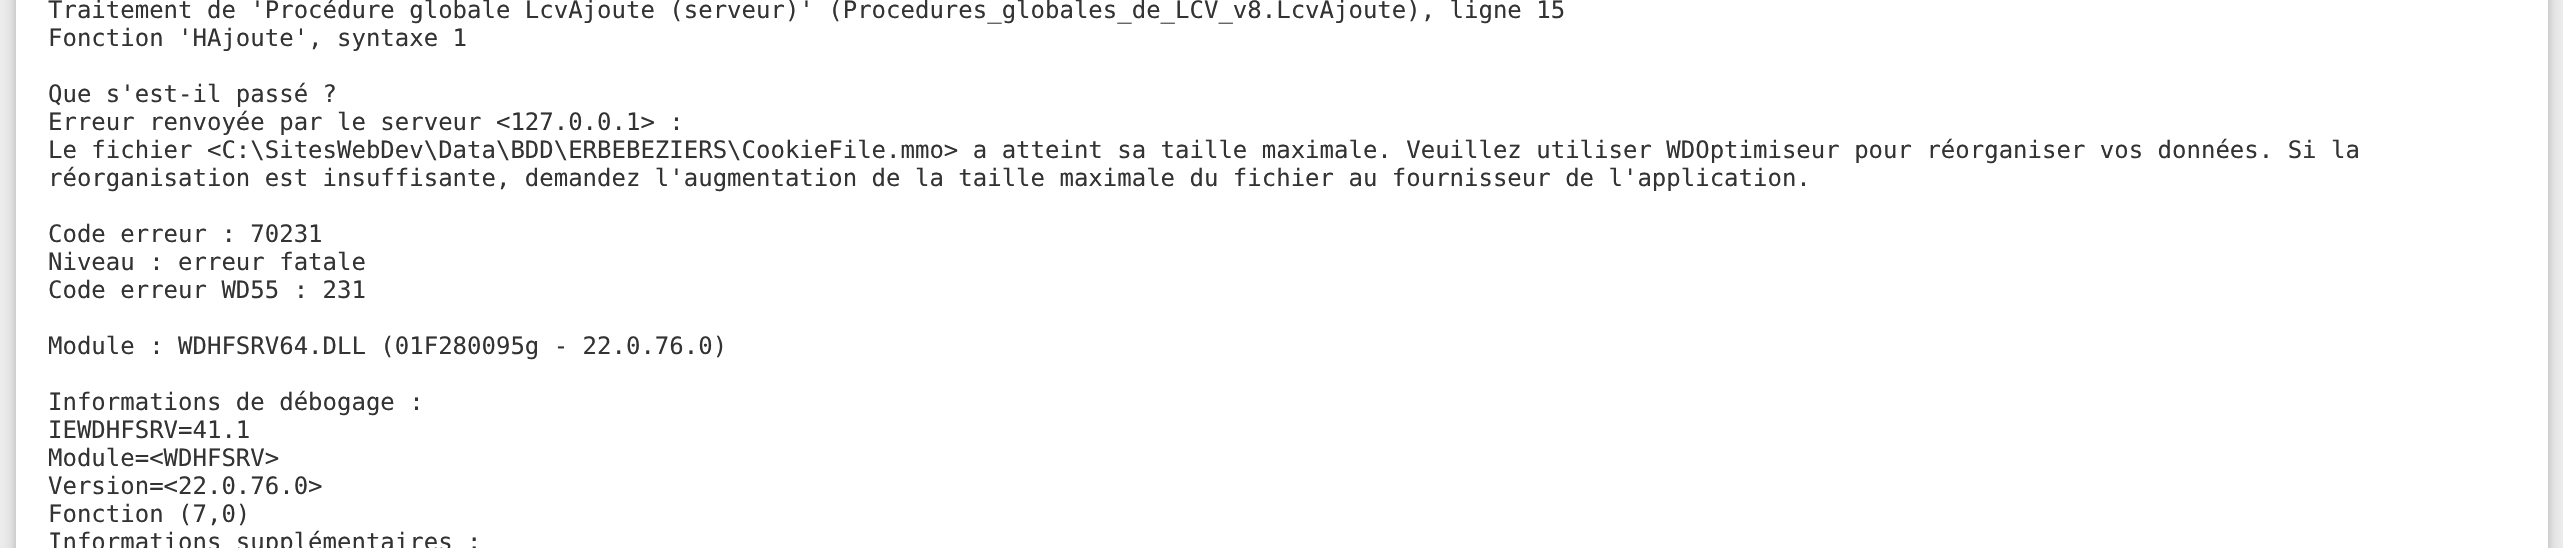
#include "include/core/SkBlurTypes.h"
#include "include/core/SkCanvas.h"
#include "include/core/SkData.h"
#include "include/core/SkFont.h"
#include "include/core/SkFontMgr.h"
#include "include/core/SkImage.h"
#include "include/core/SkMaskFilter.h"
#include "include/core/SkPaint.h"
#include "include/core/SkPathBuilder.h"
#include "include/core/SkTextBlob.h"
#include "include/effects/SkDashPathEffect.h"
#include "include/effects/SkGradientShader.h"
#include "include/utils/SkParsePath.h"

extern sk_sp<SkFontMgr> fontMgr;

static SkFont font(const char* family, int weight, float size, bool italic = false) {
    SkFontStyle style(weight, SkFontStyle::kNormal_Width,
        italic ? SkFontStyle::kItalic_Slant : SkFontStyle::kUpright_Slant);
    SkFont result(fontMgr->matchFamilyStyle(family, style), size);
    result.setSubpixel(true);
    return result;
}

static void drawLabel(SkCanvas* canvas, const char* s, float x, float y, const SkFont& font, SkColor color) {
    SkPaint ink(SkColor4f::FromColor(color));
    ink.setAntiAlias(true);
    canvas->drawString(s, x, y, font, ink);
}

static void fillRect(SkCanvas* canvas, float x, float y, float w, float h, SkColor color) {
    SkPaint ink(SkColor4f::FromColor(color));
    ink.setAntiAlias(true);
    canvas->drawRect(SkRect::MakeXYWH(x, y, w, h), ink);
}

void draw(SkCanvas* canvas) {
    SkPaint paint;
    paint.setAntiAlias(true);
    canvas->clear(0xFFEEEEEE);
    paint.setColor(0x1F000000);
    paint.setMaskFilter(SkMaskFilter::MakeBlur(kNormal_SkBlurStyle, 10));
    canvas->drawRoundRect(SkRect::MakeXYWH(16, -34, 2532, 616), 4, 4, paint);
    paint.setMaskFilter(nullptr);
    paint.setColor(0x29000000);
    paint.setMaskFilter(SkMaskFilter::MakeBlur(kNormal_SkBlurStyle, 5));
    canvas->drawRoundRect(SkRect::MakeXYWH(16, -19, 2532, 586), 4, 4, paint);
    paint.setMaskFilter(nullptr);
    fillRect(canvas, 16, 0, 2532, 548, 0xFFFFFFFF);
    SkFont font1 = font("DejaVu Sans Mono", 400, 24);
    drawLabel(canvas, "Traitement de 'Procédure globale LcvAjoute (serveur)' (Procedures_globales_de_LCV_v8.LcvAjoute), ligne 15", 48, 18, font1, 0xFF333333);
    drawLabel(canvas, "Fonction 'HAjoute', syntaxe 1", 48, 46, font1, 0xFF333333);
    drawLabel(canvas, "Que s'est-il passé ?", 48, 102, font1, 0xFF333333);
    drawLabel(canvas, "Erreur renvoyée par le serveur <127.0.0.1> :", 48, 130, font1, 0xFF333333);
    drawLabel(canvas, "Le fichier <C:\\SitesWebDev\\Data\\BDD\\ERBEBEZIERS\\CookieFile.mmo> a atteint sa taille maximale. Veuillez utiliser WDOptimiseur pour réorganiser vos données. Si la", 48, 158, font1, 0xFF333333);
    drawLabel(canvas, "réorganisation est insuffisante, demandez l'augmentation de la taille maximale du fichier au fournisseur de l'application.", 48, 186, font1, 0xFF333333);
    drawLabel(canvas, "Code erreur : 70231", 48, 242, font1, 0xFF333333);
    drawLabel(canvas, "Niveau : erreur fatale", 48, 270, font1, 0xFF333333);
    drawLabel(canvas, "Code erreur WD55 : 231", 48, 298, font1, 0xFF333333);
    drawLabel(canvas, "Module : WDHFSRV64.DLL (01F280095g - 22.0.76.0)", 48, 354, font1, 0xFF333333);
    drawLabel(canvas, "Informations de débogage :", 48, 410, font1, 0xFF333333);
    drawLabel(canvas, "IEWDHFSRV=41.1", 48, 438, font1, 0xFF333333);
    drawLabel(canvas, "Module=<WDHFSRV>", 48, 466, font1, 0xFF333333);
    drawLabel(canvas, "Version=<22.0.76.0>", 48, 494, font1, 0xFF333333);
    drawLabel(canvas, "Fonction (7,0)", 48, 522, font1, 0xFF333333);
    drawLabel(canvas, "Informations supplémentaires :", 48, 550, font1, 0xFF333333);
}
